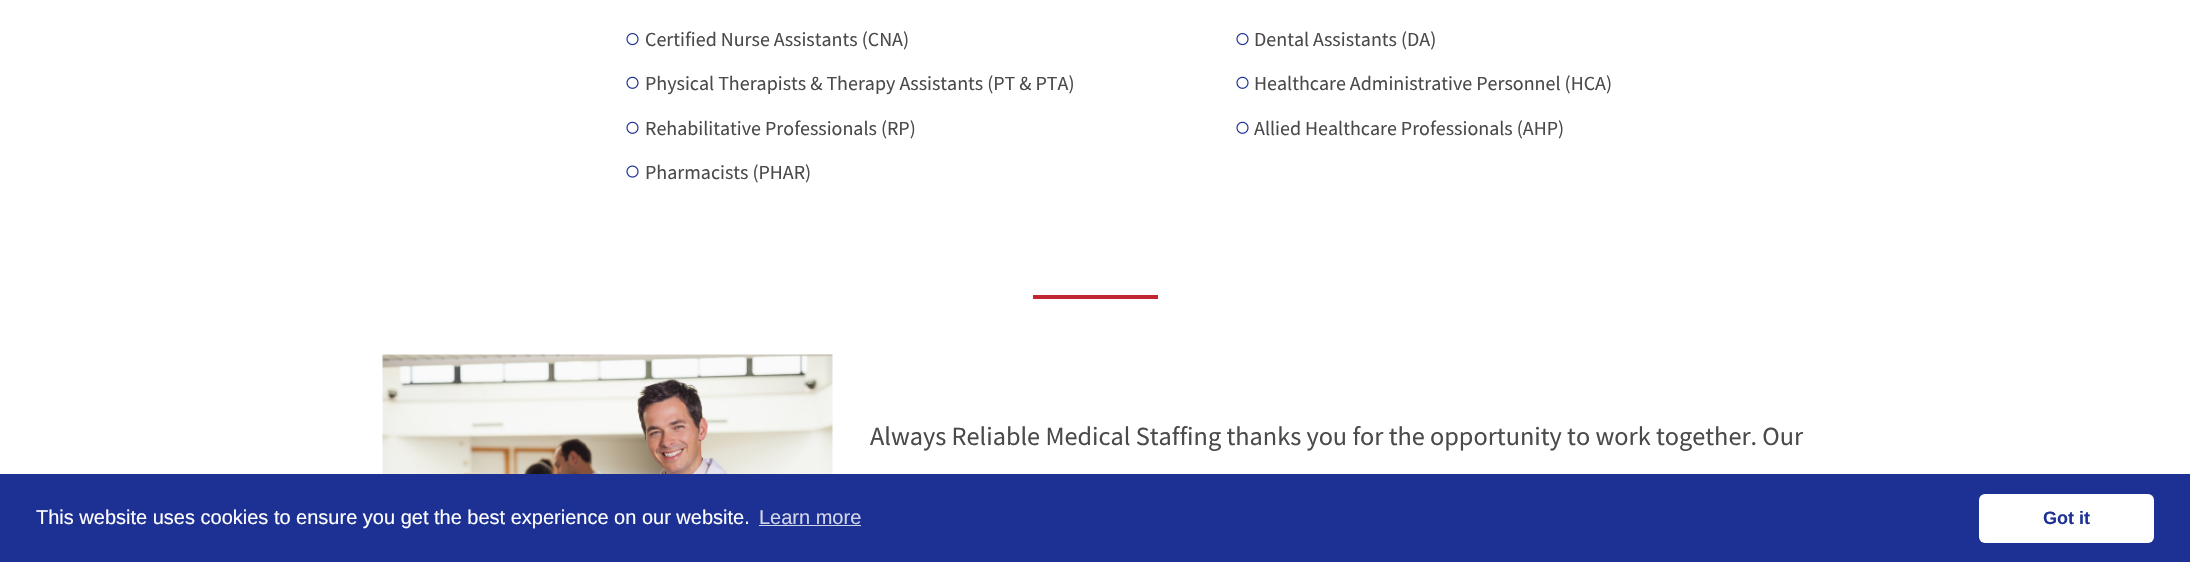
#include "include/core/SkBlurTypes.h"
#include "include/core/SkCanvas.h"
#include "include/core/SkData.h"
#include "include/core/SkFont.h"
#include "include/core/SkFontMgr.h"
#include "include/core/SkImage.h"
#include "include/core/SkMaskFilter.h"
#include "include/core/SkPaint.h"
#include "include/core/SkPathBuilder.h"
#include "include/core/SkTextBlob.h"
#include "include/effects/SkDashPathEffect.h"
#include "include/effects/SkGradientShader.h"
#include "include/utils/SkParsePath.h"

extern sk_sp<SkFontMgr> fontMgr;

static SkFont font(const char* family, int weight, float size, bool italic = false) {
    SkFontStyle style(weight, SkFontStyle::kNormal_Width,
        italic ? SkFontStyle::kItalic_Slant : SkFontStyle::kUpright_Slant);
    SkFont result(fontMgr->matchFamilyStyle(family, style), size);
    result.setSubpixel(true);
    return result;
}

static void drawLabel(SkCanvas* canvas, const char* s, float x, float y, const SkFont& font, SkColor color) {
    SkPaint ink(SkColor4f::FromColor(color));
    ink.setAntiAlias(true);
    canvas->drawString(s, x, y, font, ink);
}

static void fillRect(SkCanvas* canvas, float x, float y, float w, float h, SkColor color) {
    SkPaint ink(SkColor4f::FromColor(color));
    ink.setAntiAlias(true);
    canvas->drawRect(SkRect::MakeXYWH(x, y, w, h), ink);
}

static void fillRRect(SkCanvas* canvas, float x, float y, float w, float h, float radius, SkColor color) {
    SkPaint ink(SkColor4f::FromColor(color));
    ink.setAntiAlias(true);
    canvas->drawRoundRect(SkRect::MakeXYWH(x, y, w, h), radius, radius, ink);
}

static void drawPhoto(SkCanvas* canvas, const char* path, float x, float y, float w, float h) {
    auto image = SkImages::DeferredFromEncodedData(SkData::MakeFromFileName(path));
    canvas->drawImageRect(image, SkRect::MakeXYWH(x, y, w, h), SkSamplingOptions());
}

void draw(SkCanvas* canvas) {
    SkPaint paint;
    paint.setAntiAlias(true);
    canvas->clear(0xFFFFFFFF);
    drawPhoto(canvas, "assets/img1.png", 626, 33, 13, 13);
    SkFont font1 = font("Source Sans Pro", 400, 20);
    drawLabel(canvas, "Certified Nurse Assistants (CNA)", 645, 46, font1, 0xFF4A4A4A);
    drawPhoto(canvas, "assets/img2.png", 626, 76, 13, 13);
    drawLabel(canvas, "Physical Therapists & Therapy Assistants (PT & PTA)", 645, 90, font1, 0xFF4A4A4A);
    drawPhoto(canvas, "assets/img2.png", 626, 121, 13, 13);
    drawLabel(canvas, "Rehabilitative Professionals (RP)", 645, 135, font1, 0xFF4A4A4A);
    drawPhoto(canvas, "assets/img3.png", 626, 165, 13, 13);
    drawLabel(canvas, "Pharmacists (PHAR)", 645, 179, font1, 0xFF4A4A4A);
    drawPhoto(canvas, "assets/img1.png", 1236, 33, 13, 13);
    drawLabel(canvas, "Dental Assistants (DA)", 1254, 46, font1, 0xFF4A4A4A);
    drawPhoto(canvas, "assets/img2.png", 1236, 76, 13, 13);
    drawLabel(canvas, "Healthcare Administrative Personnel (HCA)", 1254, 90, font1, 0xFF4A4A4A);
    drawPhoto(canvas, "assets/img2.png", 1236, 121, 13, 13);
    drawLabel(canvas, "Allied Healthcare Professionals (AHP)", 1254, 135, font1, 0xFF4A4A4A);
    fillRect(canvas, 1033, 295, 125, 4, 0xFFC02731);
    drawPhoto(canvas, "assets/img4.png", 382, 354, 451, 120);
    SkFont font2 = font("Source Sans Pro", 400, 26.25f);
    drawLabel(canvas, "Always Reliable Medical Staffing thanks you for the opportunity to work together. Our", 870, 445, font2, 0xFF4A4A4A);
    fillRect(canvas, 0, 474, 2190, 88, 0xFF1C3193);
    SkFont font3 = font("Liberation Sans", 400, 20);
    drawLabel(canvas, "This website uses cookies to ensure you get the best experience on our website.", 36, 524, font3, 0xFFFFFFFF);
    drawLabel(canvas, "Learn more", 759, 524, font3, 0xFFD2D6E9);
    fillRect(canvas, 759, 525, 102, 1, 0xFFD2D6E9);
    fillRRect(canvas, 1979, 494, 175, 49, 6, 0xFFFFFFFF);
    SkFont font4 = font("Liberation Sans", 700, 18);
    drawLabel(canvas, "Got it", 2043, 524, font4, 0xFF1C3193);
}
